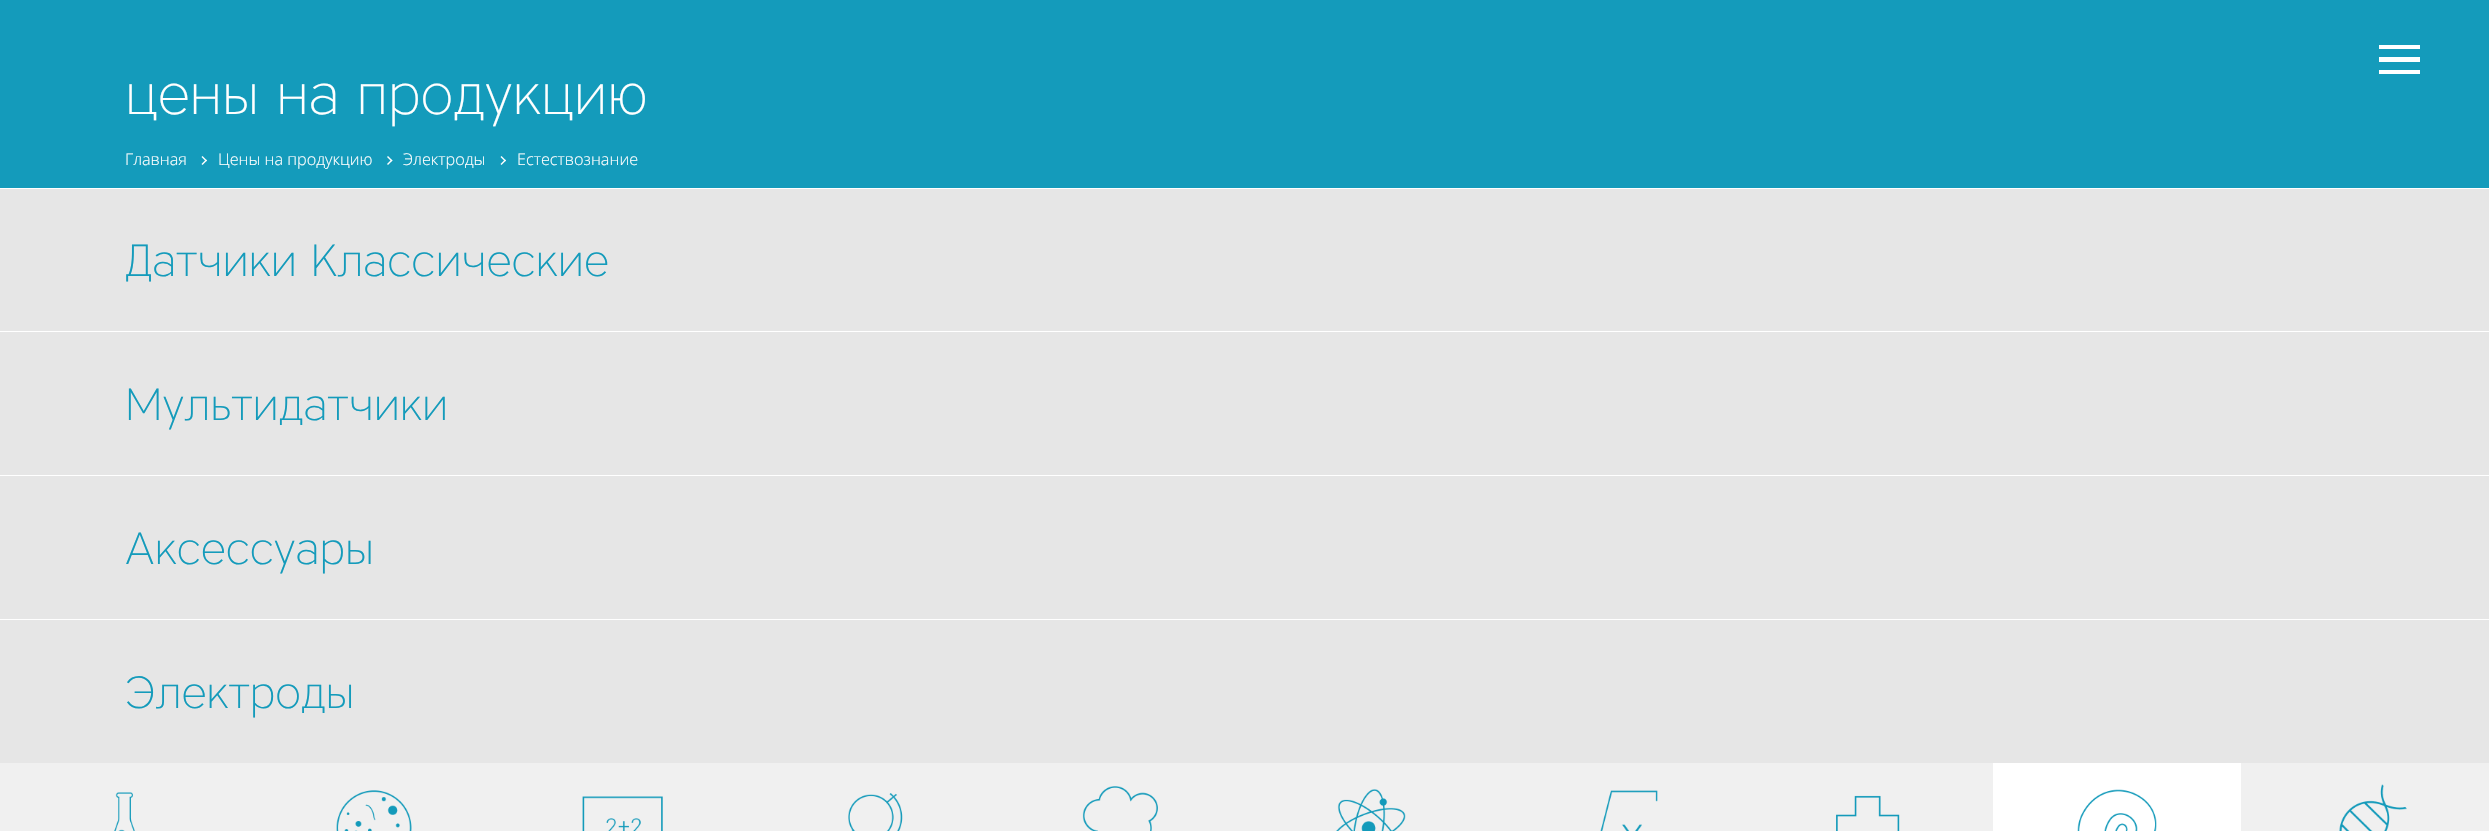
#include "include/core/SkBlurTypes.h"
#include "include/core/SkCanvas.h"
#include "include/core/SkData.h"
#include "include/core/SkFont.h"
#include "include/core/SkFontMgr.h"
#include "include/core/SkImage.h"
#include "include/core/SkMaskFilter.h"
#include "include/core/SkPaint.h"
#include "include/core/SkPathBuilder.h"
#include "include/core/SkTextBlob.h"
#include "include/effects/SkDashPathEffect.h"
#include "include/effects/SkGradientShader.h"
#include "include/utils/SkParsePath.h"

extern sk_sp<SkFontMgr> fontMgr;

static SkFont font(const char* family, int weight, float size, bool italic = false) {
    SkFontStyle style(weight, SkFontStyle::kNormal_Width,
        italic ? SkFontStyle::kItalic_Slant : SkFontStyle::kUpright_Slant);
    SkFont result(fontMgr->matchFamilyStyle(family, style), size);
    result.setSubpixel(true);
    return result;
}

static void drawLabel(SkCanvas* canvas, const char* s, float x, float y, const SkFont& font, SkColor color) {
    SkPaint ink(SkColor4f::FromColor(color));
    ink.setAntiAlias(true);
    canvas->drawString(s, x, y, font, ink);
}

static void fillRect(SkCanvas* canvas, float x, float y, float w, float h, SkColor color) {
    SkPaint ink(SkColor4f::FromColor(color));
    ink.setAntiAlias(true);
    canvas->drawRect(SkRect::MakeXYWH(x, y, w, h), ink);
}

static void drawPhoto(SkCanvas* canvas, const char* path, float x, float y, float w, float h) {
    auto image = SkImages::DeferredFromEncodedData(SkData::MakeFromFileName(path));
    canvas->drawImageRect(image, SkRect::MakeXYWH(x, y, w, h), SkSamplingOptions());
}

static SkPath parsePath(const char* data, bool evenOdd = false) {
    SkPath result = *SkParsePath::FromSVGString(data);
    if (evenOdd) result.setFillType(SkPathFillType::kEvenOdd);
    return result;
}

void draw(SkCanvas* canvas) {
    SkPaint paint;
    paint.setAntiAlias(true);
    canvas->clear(0xFFE6E6E6);
    fillRect(canvas, 0, 0, 2489, 188, 0xFF149BBB);
    paint.setColor(0xFFFFFFFF);
    canvas->drawRect(SkRect::MakeXYWH(2378.5f, 44.5f, 42, 5), paint);
    paint.setStroke(true);
    paint.setStrokeWidth(1);
    paint.setColor(0xFF149BBB);
    canvas->drawRect(SkRect::MakeXYWH(2378.5f, 44.5f, 42, 5), paint);
    paint.setStroke(false);
    paint.setColor(0xFFFFFFFF);
    canvas->drawRect(SkRect::MakeXYWH(2378.5f, 56.5f, 42, 6), paint);
    paint.setStroke(true);
    paint.setColor(0xFF149BBB);
    canvas->drawRect(SkRect::MakeXYWH(2378.5f, 56.5f, 42, 6), paint);
    paint.setStroke(false);
    paint.setColor(0xFFFFFFFF);
    canvas->drawRect(SkRect::MakeXYWH(2378.5f, 69.5f, 42, 5), paint);
    paint.setStroke(true);
    paint.setColor(0xFF149BBB);
    canvas->drawRect(SkRect::MakeXYWH(2378.5f, 69.5f, 42, 5), paint);
    SkFont font1 = font("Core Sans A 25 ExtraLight", 200, 57.5f);
    drawLabel(canvas, "цены на продукцию", 125, 114, font1, 0xFFFFFFFF);
    SkFont font2 = font("Open Sans", 300, 16.25f);
    drawLabel(canvas, "Главная", 125, 165, font2, 0xFFFFFFFF);
    paint.setStroke(false);
    paint.setColor(0xFFFFFFFF);
    canvas->drawPath(parsePath("M202.5 156L207 160.5L206 161.5L201.5 157Z"), paint);
    canvas->drawPath(parsePath("M206 159.5L207 160.5L202.5 165L201.5 164Z"), paint);
    drawLabel(canvas, "Цены на продукцию", 218, 165, font2, 0xFFFFFFFF);
    canvas->drawPath(parsePath("M388 156L392.5 160.5L391.5 161.5L387 157Z"), paint);
    canvas->drawPath(parsePath("M391.5 159.5L392.5 160.5L388 165L387 164Z"), paint);
    drawLabel(canvas, "Электроды", 403, 165, font2, 0xFFFFFFFF);
    canvas->drawPath(parsePath("M501.5 156L506 160.5L505 161.5L500.5 157Z"), paint);
    canvas->drawPath(parsePath("M505 159.5L506 160.5L501.5 165L500.5 164Z"), paint);
    drawLabel(canvas, "Естествознание", 517, 165, font2, 0xFFFFFFFF);
    fillRect(canvas, 0, 188, 2489, 1, 0xFFFFFFFF);
    SkFont font3 = font("Core Sans A 25 ExtraLight", 200, 45);
    drawLabel(canvas, "Датчики Классические", 125, 276, font3, 0xFF149BBB);
    fillRect(canvas, 0, 331, 2489, 1, 0xFFFFFFFF);
    drawLabel(canvas, "Мультидатчики", 125, 420, font3, 0xFF149BBB);
    fillRect(canvas, 0, 475, 2489, 1, 0xFFFFFFFF);
    drawLabel(canvas, "Аксессуары", 125, 564, font3, 0xFF149BBB);
    fillRect(canvas, 0, 619, 2489, 1, 0xFFFFFFFF);
    drawLabel(canvas, "Электроды", 125, 708, font3, 0xFF149BBB);
    fillRect(canvas, 0, 763, 1993, 68, 0xFFF0F0F0);
    drawPhoto(canvas, "assets/img1.png", 114, 792, 21, 39);
    fillRect(canvas, 1993, 763, 248, 68, 0xFFFFFFFF);
    drawPhoto(canvas, "assets/img2.png", 2077, 789, 80, 42);
    fillRect(canvas, 2241, 763, 248, 68, 0xFFF0F0F0);
    drawPhoto(canvas, "assets/img3.png", 2339, 784, 68, 47);
    drawPhoto(canvas, "assets/img4.png", 336, 790, 76, 41);
    drawPhoto(canvas, "assets/img5.png", 582, 796, 81, 35);
    drawPhoto(canvas, "assets/img6.png", 848, 793, 55, 38);
    drawPhoto(canvas, "assets/img7.png", 1082, 786, 76, 45);
    drawPhoto(canvas, "assets/img8.png", 1336, 789, 70, 42);
    drawPhoto(canvas, "assets/img9.png", 1600, 790, 58, 41);
    drawPhoto(canvas, "assets/img10.png", 1836, 795, 64, 36);
}
